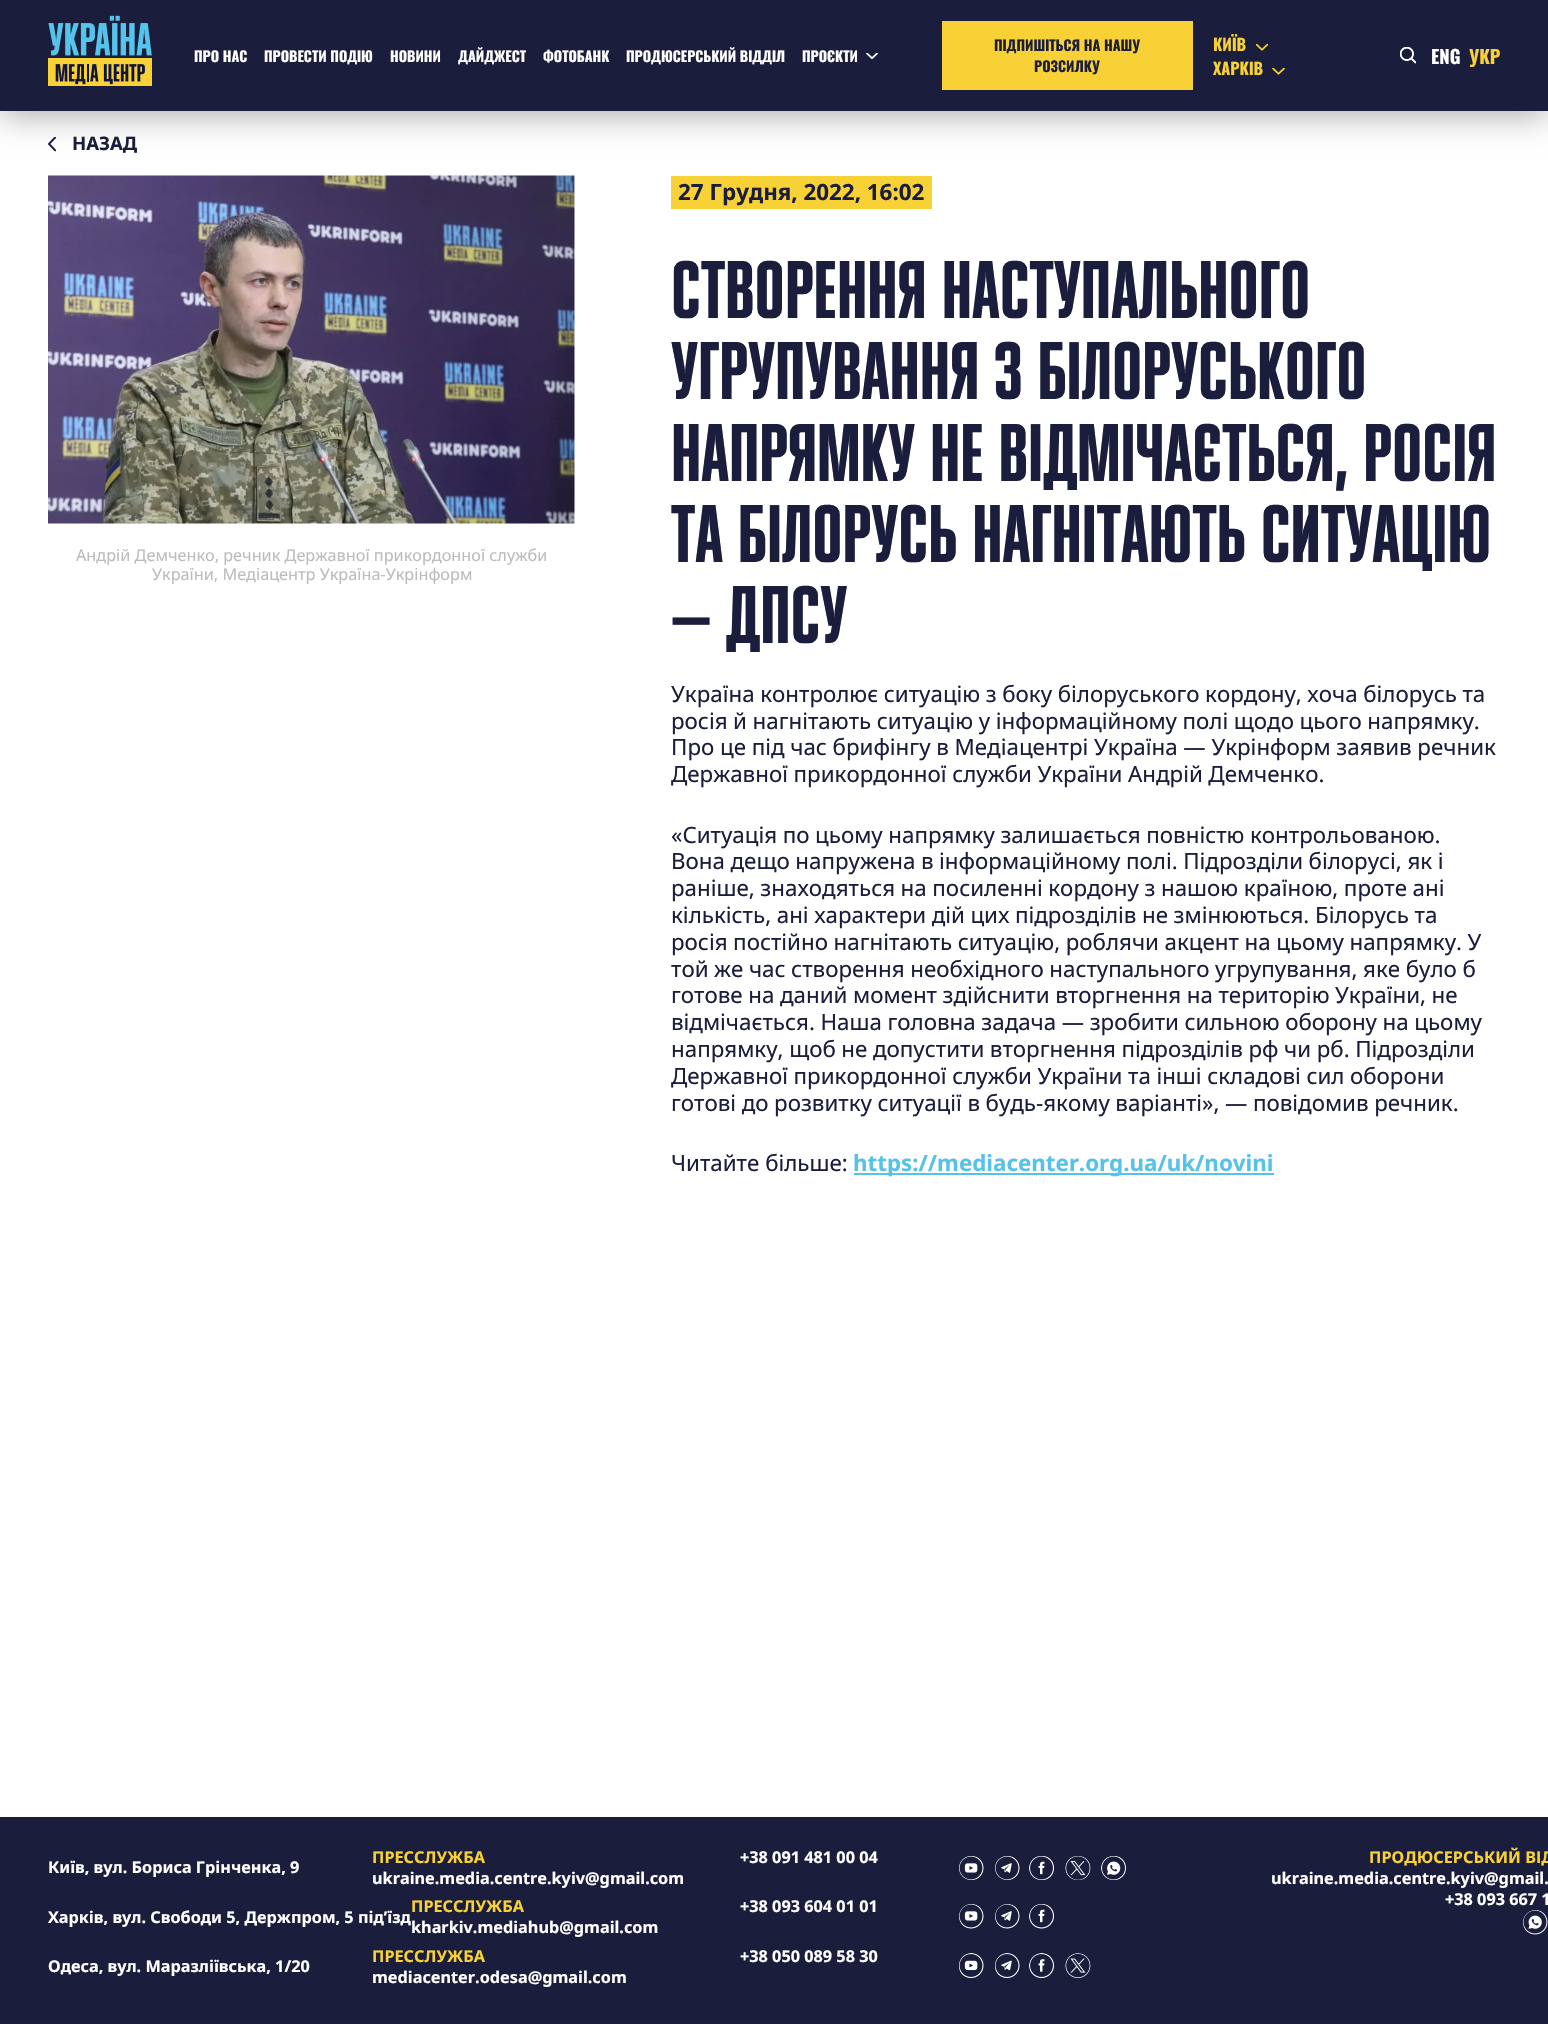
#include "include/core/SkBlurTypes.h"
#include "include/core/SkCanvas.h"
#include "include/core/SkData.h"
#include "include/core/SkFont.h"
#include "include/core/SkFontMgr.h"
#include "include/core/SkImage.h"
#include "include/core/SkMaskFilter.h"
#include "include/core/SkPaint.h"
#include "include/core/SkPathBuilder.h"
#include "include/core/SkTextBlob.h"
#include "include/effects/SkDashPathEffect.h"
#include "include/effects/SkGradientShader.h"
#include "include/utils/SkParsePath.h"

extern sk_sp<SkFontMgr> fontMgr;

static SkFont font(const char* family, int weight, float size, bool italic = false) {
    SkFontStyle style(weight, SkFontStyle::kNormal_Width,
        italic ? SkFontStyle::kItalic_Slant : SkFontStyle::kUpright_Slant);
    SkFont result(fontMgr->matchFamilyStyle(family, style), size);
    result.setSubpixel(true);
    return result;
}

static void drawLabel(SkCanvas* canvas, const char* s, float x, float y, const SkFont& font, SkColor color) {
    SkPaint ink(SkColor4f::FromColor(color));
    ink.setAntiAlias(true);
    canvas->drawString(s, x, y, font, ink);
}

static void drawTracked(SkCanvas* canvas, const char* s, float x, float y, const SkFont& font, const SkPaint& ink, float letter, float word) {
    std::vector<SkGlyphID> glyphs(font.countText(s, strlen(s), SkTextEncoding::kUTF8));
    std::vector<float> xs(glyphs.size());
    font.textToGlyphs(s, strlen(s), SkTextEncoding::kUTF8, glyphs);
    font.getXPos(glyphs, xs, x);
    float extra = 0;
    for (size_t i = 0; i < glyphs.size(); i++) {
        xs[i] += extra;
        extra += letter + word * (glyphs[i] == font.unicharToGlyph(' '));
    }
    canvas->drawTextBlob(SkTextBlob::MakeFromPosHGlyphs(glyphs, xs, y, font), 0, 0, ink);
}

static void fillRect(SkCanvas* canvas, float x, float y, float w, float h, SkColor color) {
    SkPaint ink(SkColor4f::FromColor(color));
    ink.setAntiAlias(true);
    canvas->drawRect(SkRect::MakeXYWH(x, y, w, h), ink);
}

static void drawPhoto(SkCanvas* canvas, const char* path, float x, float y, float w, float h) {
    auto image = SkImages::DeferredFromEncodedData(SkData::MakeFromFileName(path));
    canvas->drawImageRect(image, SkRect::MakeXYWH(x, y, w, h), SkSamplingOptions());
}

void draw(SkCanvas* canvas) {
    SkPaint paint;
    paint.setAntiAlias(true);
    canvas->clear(0xFFFFFFFF);
    drawPhoto(canvas, "assets/img6.png", 48, 137, 9, 15);
    paint.setColor(0x4D000000);
    paint.setMaskFilter(SkMaskFilter::MakeBlur(kNormal_SkBlurStyle, 15));
    canvas->drawRect(SkRect::MakeXYWH(0, 6, 1548, 111), paint);
    paint.setMaskFilter(nullptr);
    fillRect(canvas, 0, 0, 1548, 111, 0xFF1B1D3C);
    drawPhoto(canvas, "assets/img1.png", 48, 15, 104, 71);
    SkFont font1 = font("Oswald", 700, 14.25f);
    drawLabel(canvas, "ПРО НАС", 194, 62, font1, 0xFFFFFFFF);
    drawLabel(canvas, "ПРОВЕСТИ ПОДІЮ", 264, 62, font1, 0xFFFFFFFF);
    drawLabel(canvas, "НОВИНИ", 390, 62, font1, 0xFFFFFFFF);
    drawLabel(canvas, "ДАЙДЖЕСТ", 458, 62, font1, 0xFFFFFFFF);
    drawLabel(canvas, "ФОТОБАНК", 543, 62, font1, 0xFFFFFFFF);
    drawLabel(canvas, "ПРОДЮСЕРСЬКИЙ ВІДДІЛ", 626, 62, font1, 0xFFFFFFFF);
    drawLabel(canvas, "ПРОЄКТИ", 802, 62, font1, 0xFFFFFFFF);
    drawPhoto(canvas, "assets/img2.png", 866, 53, 12, 6);
    fillRect(canvas, 942, 21, 251, 69, 0xFFF7D135);
    drawLabel(canvas, "ПІДПИШІТЬСЯ НА НАШУ", 994, 51, font1, 0xFF1B1D3C);
    drawLabel(canvas, "РОЗСИЛКУ", 1034, 72, font1, 0xFF1B1D3C);
    SkFont font2 = font("Oswald", 700, 16.25f);
    drawLabel(canvas, "КИЇВ", 1213, 51, font2, 0xFFF7D135);
    drawPhoto(canvas, "assets/img3.png", 1256, 44, 12, 7);
    drawLabel(canvas, "ХАРКІВ", 1213, 75, font2, 0xFFF7D135);
    drawPhoto(canvas, "assets/img4.png", 1272, 68, 13, 7);
    drawPhoto(canvas, "assets/img5.png", 1400, 47, 16, 17);
    SkFont font3 = font("Oswald", 700, 18.5f);
    drawLabel(canvas, "ENG", 1431, 64, font3, 0xFFFFFFFF);
    drawLabel(canvas, "УКР", 1469, 64, font3, 0xFFF7D135);
    SkFont font4 = font("Noto Sans", 700, 18.5f);
    drawLabel(canvas, "НАЗАД", 72, 150, font4, 0xFF1B1D3C);
    drawPhoto(canvas, "assets/img7.png", 48, 175, 527, 349);
    SkFont font5 = font("Noto Sans", 400, 16.25f);
    drawLabel(canvas, "Андрій Демченко, речник Державної прикордонної служби", 76, 561, font5, 0xFFBCBCBC);
    drawLabel(canvas, "України, Медіацентр Україна-Укрінформ", 152, 580, font5, 0xFFBCBCBC);
    fillRect(canvas, 671, 176, 261, 33, 0xFFF7D135);
    SkFont font6 = font("Noto Sans", 700, 22.35f);
    drawLabel(canvas, "27 Грудня, 2022, 16:02", 678, 200, font6, 0xFF1B1D3C);
    SkFont font7 = font("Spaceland", 700, 81.25f);
    drawLabel(canvas, "СТВОРЕННЯ НАСТУПАЛЬНОГО", 671, 318, font7, 0xFF1B1D3C);
    drawLabel(canvas, "УГРУПУВАННЯ З БІЛОРУСЬКОГО", 671, 399, font7, 0xFF1B1D3C);
    drawLabel(canvas, "НАПРЯМКУ НЕ ВІДМІЧАЄТЬСЯ, РОСІЯ", 671, 481, font7, 0xFF1B1D3C);
    drawLabel(canvas, "ТА БІЛОРУСЬ НАГНІТАЮТЬ СИТУАЦІЮ", 671, 562, font7, 0xFF1B1D3C);
    drawLabel(canvas, "— ДПСУ", 671, 643, font7, 0xFF1B1D3C);
    SkFont font8 = font("Noto Sans", 400, 22.35f);
    paint.setColor(0xFF1B1D3C);
    drawTracked(canvas, "Україна контролює ситуацію з боку білоруського кордону, хоча білорусь та", 671, 702, font8, paint, 0, -0.25f);
    drawTracked(canvas, "росія й нагнітають ситуацію у інформаційному полі щодо цього напрямку.", 671, 729, font8, paint, 0, -0.25f);
    drawTracked(canvas, "Про це під час брифінгу в Медіацентрі Україна — Укрінформ заявив речник", 671, 755, font8, paint, 0, -0.1f);
    drawTracked(canvas, "Державної прикордонної служби України Андрій Демченко.", 671, 782, font8, paint, 0, -0.25f);
    drawTracked(canvas, "«Ситуація по цьому напрямку залишається повністю контрольованою.", 671, 843, font8, paint, 0, -0.25f);
    drawTracked(canvas, "Вона дещо напружена в інформаційному полі. Підрозділи білорусі, як і", 671, 869, font8, paint, 0, -0.25f);
    drawTracked(canvas, "раніше, знаходяться на посиленні кордону з нашою країною, проте ані", 671, 896, font8, paint, 0, -0.25f);
    drawTracked(canvas, "кількість, ані характери дій цих підрозділів не змінюються. Білорусь та", 671, 923, font8, paint, 0, -0.25f);
    drawTracked(canvas, "росія постійно нагнітають ситуацію, роблячи акцент на цьому напрямку. У", 671, 950, font8, paint, 0, -0.25f);
    drawTracked(canvas, "той же час створення необхідного наступального угрупування, яке було б", 671, 977, font8, paint, 0, -0.25f);
    drawTracked(canvas, "готове на даний момент здійснити вторгнення на територію України, не", 671, 1003, font8, paint, 0, -0.25f);
    drawTracked(canvas, "відмічається. Наша головна задача — зробити сильною оборону на цьому", 671, 1030, font8, paint, 0, -0.25f);
    drawTracked(canvas, "напрямку, щоб не допустити вторгнення підрозділів рф чи рб. Підрозділи", 671, 1057, font8, paint, 0, -0.25f);
    drawTracked(canvas, "Державної прикордонної служби України та інші складові сил оборони", 671, 1084, font8, paint, 0, -0.25f);
    drawTracked(canvas, "готові до розвитку ситуації в будь-якому варіанті», — повідомив речник.", 671, 1111, font8, paint, 0, -0.25f);
    drawLabel(canvas, "Читайте більше:", 671, 1171, font8, 0xFF1B1D3C);
    fillRect(canvas, 854, 1173, 420, 2, 0xFF56C2E8);
    drawLabel(canvas, "https://mediacenter.org.ua/uk/novini", 853, 1171, font6, 0xFF56C2E8);
    fillRect(canvas, 0, 1817, 1548, 207, 0xFF1B1D3C);
    SkFont font9 = font("Noto Sans", 700, 16.25f);
    drawLabel(canvas, "Київ, вул. Бориса Грінченка, 9", 48, 1873, font9, 0xFFFFFFFF);
    drawLabel(canvas, "ПРЕССЛУЖБА", 372, 1863, font9, 0xFFF7D135);
    drawLabel(canvas, "ukraine.media.centre.kyiv@gmail.com", 372, 1884, font9, 0xFFFFFFFF);
    drawLabel(canvas, "+38 091 481 00 04", 740, 1863, font9, 0xFFFFFFFF);
    drawPhoto(canvas, "assets/img8.png", 959, 1856, 25, 24);
    drawPhoto(canvas, "assets/img9.png", 995, 1856, 25, 24);
    drawPhoto(canvas, "assets/img10.png", 1029, 1856, 25, 24);
    drawPhoto(canvas, "assets/img11.png", 1065, 1856, 26, 24);
    drawPhoto(canvas, "assets/img12.png", 1101, 1856, 25, 24);
    drawLabel(canvas, "ПРОДЮСЕРСЬКИЙ ВІД", 1369, 1863, font9, 0xFFF7D135);
    drawLabel(canvas, "ukraine.media.centre.kyiv@gmail.", 1271, 1884, font9, 0xFFFFFFFF);
    drawLabel(canvas, "+38 093 667 1", 1445, 1905, font9, 0xFFFFFFFF);
    drawPhoto(canvas, "assets/img13.png", 1523, 1910, 25, 25);
    drawLabel(canvas, "Харків, вул. Свободи 5, Держпром, 5 підʼїзд", 48, 1923, font9, 0xFFFFFFFF);
    drawLabel(canvas, "ПРЕССЛУЖБА", 411, 1912, font9, 0xFFF7D135);
    drawLabel(canvas, "kharkiv.mediahub@gmail.com", 411, 1933, font9, 0xFFFFFFFF);
    drawLabel(canvas, "+38 093 604 01 01", 740, 1912, font9, 0xFFFFFFFF);
    drawPhoto(canvas, "assets/img14.png", 959, 1904, 25, 25);
    drawPhoto(canvas, "assets/img15.png", 995, 1904, 25, 25);
    drawPhoto(canvas, "assets/img16.png", 1029, 1904, 25, 25);
    drawLabel(canvas, "Одеса, вул. Маразліївська, 1/20", 48, 1972, font9, 0xFFFFFFFF);
    drawLabel(canvas, "ПРЕССЛУЖБА", 372, 1962, font9, 0xFFF7D135);
    drawLabel(canvas, "mediacenter.odesa@gmail.com", 372, 1983, font9, 0xFFFFFFFF);
    drawLabel(canvas, "+38 050 089 58 30", 740, 1962, font9, 0xFFFFFFFF);
    drawPhoto(canvas, "assets/img17.png", 959, 1953, 25, 25);
    drawPhoto(canvas, "assets/img18.png", 995, 1953, 25, 25);
    drawPhoto(canvas, "assets/img19.png", 1029, 1953, 26, 26);
    drawPhoto(canvas, "assets/img20.png", 1065, 1953, 26, 25);
}
